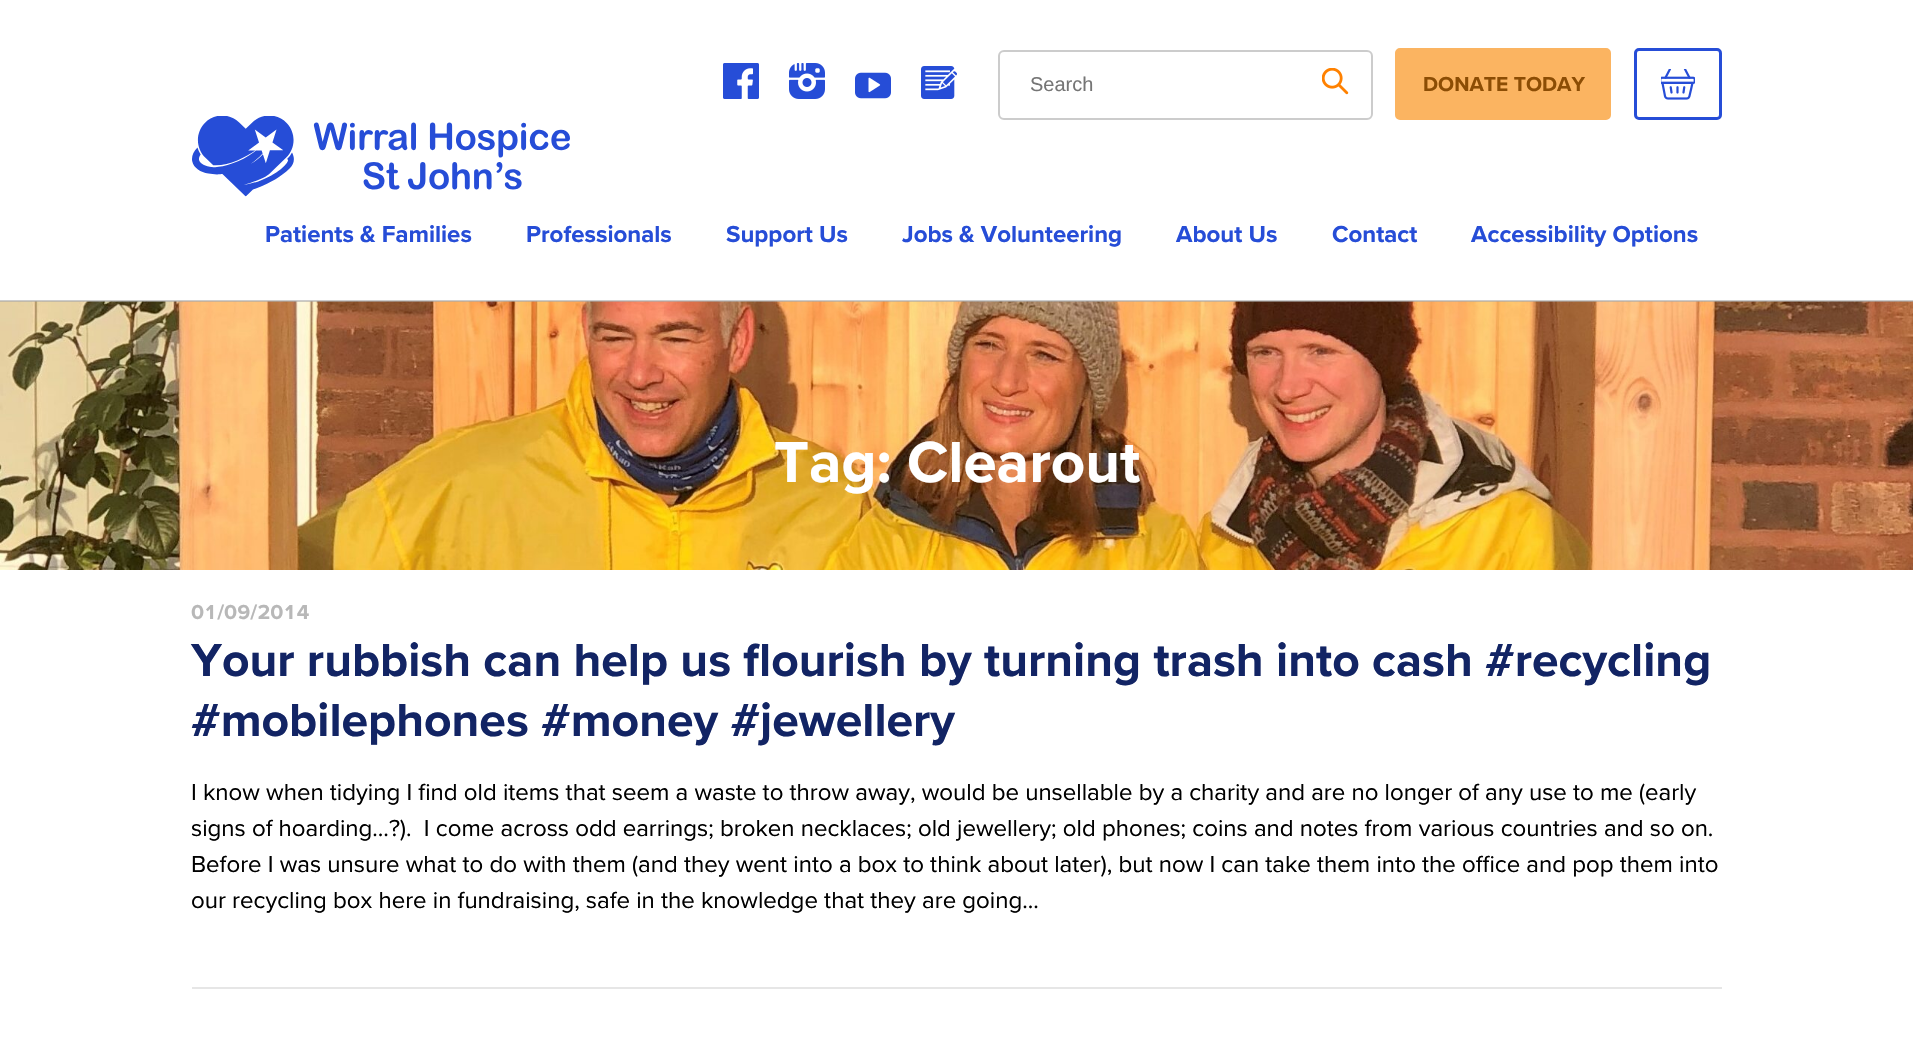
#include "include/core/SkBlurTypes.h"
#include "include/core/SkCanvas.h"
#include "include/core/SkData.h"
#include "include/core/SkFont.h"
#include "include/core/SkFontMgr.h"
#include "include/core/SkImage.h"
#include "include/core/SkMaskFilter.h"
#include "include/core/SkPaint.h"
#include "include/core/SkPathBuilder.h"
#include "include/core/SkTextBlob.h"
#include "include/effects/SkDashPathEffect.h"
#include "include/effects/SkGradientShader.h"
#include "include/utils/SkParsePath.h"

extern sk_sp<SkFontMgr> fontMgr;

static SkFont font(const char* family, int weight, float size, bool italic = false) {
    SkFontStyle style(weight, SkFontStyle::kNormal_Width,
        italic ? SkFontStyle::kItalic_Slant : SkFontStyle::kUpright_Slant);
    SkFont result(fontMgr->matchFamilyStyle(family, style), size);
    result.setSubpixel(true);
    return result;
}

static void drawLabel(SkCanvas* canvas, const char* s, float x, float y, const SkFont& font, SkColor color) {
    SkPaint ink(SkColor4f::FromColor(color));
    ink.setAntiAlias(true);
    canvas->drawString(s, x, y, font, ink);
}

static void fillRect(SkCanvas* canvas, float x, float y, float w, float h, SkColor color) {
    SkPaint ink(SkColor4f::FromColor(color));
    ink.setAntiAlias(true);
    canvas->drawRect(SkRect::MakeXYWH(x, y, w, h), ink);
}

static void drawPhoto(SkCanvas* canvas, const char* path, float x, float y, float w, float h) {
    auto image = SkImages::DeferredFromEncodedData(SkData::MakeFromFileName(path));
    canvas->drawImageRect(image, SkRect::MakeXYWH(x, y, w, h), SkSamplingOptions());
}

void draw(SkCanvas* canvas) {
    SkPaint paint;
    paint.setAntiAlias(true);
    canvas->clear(0xFFFFFFFF);
    drawPhoto(canvas, "assets/img8.png", 0, 301, 1913, 269);
    fillRect(canvas, 0, 300, 1913, 2, 0x33000000);
    drawPhoto(canvas, "assets/img1.png", 723, 63, 36, 36);
    drawPhoto(canvas, "assets/img2.png", 789, 63, 36, 36);
    drawPhoto(canvas, "assets/img3.png", 855, 72, 36, 27);
    drawPhoto(canvas, "assets/img4.png", 921, 66, 36, 33);
    paint.setStroke(true);
    paint.setStrokeWidth(2);
    paint.setColor(0xFFCCCCCC);
    canvas->drawRoundRect(SkRect::MakeXYWH(999, 51, 373, 68), 5, 5, paint);
    SkFont font1 = font("Liberation Sans", 400, 20);
    drawLabel(canvas, "Search", 1030, 91, font1, 0xFF757575);
    drawPhoto(canvas, "assets/img5.png", 1322, 68, 27, 27);
    paint.setStroke(false);
    paint.setColor(0xFFFBB461);
    canvas->drawRoundRect(SkRect::MakeXYWH(1396.5f, 49.5f, 213, 69), 3.5f, 3.5f, paint);
    paint.setStroke(true);
    paint.setStrokeWidth(3);
    canvas->drawRoundRect(SkRect::MakeXYWH(1396.5f, 49.5f, 213, 69), 3.5f, 3.5f, paint);
    SkFont font2 = font("Proxima Nova", 700, 21);
    drawLabel(canvas, "DONATE TODAY", 1423, 91, font2, 0xFF8C4D04);
    paint.setColor(0xFF264DD7);
    canvas->drawRoundRect(SkRect::MakeXYWH(1635.5f, 49.5f, 85, 69), 3.5f, 3.5f, paint);
    drawPhoto(canvas, "assets/img6.png", 1661, 69, 34, 31);
    drawPhoto(canvas, "assets/img7.png", 192, 116, 378, 81);
    SkFont font3 = font("Proxima Nova", 700, 24);
    drawLabel(canvas, "Patients & Families", 265, 242, font3, 0xFF264DD7);
    drawLabel(canvas, "Professionals", 526, 242, font3, 0xFF264DD7);
    drawLabel(canvas, "Support Us", 726, 242, font3, 0xFF264DD7);
    drawLabel(canvas, "Jobs & Volunteering", 902, 242, font3, 0xFF264DD7);
    drawLabel(canvas, "About Us", 1176, 242, font3, 0xFF264DD7);
    drawLabel(canvas, "Contact", 1332, 242, font3, 0xFF264DD7);
    drawLabel(canvas, "Accessibility Options", 1471, 242, font3, 0xFF264DD7);
    SkFont font4 = font("Proxima Nova", 700, 60);
    drawLabel(canvas, "Tag: Clearout", 774, 482, font4, 0xFFFFFFFF);
    SkFont font5 = font("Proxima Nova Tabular", 700, 21);
    drawLabel(canvas, "01/09/2014", 191, 619, font5, 0xFFB8B8B8);
    SkFont font6 = font("Proxima Nova", 700, 48);
    drawLabel(canvas, "Your rubbish can help us flourish by turning trash into cash #recycling", 191, 676, font6, 0xFF122464);
    drawLabel(canvas, "#mobilephones #money #jewellery", 191, 736, font6, 0xFF122464);
    SkFont font7 = font("Proxima Nova", 400, 24);
    drawLabel(canvas, "I know when tidying I find old items that seem a waste to throw away, would be unsellable by a charity and are no longer of any use to me (early", 191, 800, font7, 0xFF000000);
    drawLabel(canvas, "signs of hoarding…?).  I come across odd earrings; broken necklaces; old jewellery; old phones; coins and notes from various countries and so on.", 191, 836, font7, 0xFF000000);
    drawLabel(canvas, "Before I was unsure what to do with them (and they went into a box to think about later), but now I can take them into the office and pop them into", 191, 872, font7, 0xFF000000);
    drawLabel(canvas, "our recycling box here in fundraising, safe in the knowledge that they are going...", 191, 908, font7, 0xFF000000);
    fillRect(canvas, 192, 987, 1530, 2, 0xFFE6E6E6);
}
